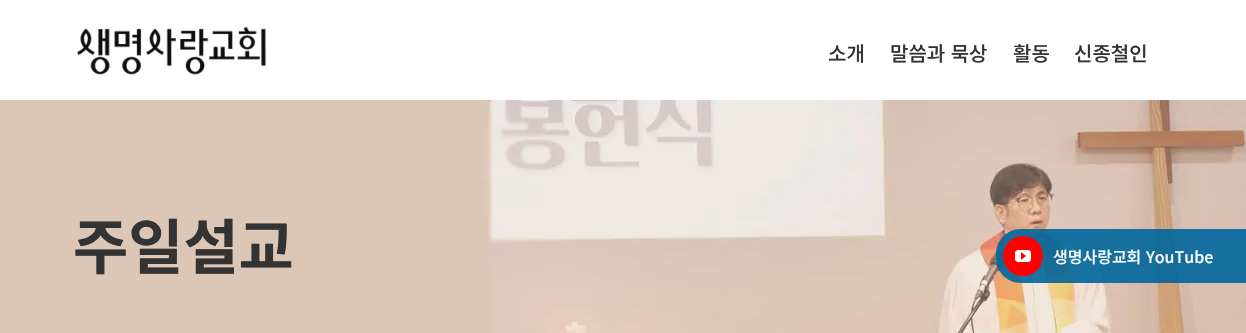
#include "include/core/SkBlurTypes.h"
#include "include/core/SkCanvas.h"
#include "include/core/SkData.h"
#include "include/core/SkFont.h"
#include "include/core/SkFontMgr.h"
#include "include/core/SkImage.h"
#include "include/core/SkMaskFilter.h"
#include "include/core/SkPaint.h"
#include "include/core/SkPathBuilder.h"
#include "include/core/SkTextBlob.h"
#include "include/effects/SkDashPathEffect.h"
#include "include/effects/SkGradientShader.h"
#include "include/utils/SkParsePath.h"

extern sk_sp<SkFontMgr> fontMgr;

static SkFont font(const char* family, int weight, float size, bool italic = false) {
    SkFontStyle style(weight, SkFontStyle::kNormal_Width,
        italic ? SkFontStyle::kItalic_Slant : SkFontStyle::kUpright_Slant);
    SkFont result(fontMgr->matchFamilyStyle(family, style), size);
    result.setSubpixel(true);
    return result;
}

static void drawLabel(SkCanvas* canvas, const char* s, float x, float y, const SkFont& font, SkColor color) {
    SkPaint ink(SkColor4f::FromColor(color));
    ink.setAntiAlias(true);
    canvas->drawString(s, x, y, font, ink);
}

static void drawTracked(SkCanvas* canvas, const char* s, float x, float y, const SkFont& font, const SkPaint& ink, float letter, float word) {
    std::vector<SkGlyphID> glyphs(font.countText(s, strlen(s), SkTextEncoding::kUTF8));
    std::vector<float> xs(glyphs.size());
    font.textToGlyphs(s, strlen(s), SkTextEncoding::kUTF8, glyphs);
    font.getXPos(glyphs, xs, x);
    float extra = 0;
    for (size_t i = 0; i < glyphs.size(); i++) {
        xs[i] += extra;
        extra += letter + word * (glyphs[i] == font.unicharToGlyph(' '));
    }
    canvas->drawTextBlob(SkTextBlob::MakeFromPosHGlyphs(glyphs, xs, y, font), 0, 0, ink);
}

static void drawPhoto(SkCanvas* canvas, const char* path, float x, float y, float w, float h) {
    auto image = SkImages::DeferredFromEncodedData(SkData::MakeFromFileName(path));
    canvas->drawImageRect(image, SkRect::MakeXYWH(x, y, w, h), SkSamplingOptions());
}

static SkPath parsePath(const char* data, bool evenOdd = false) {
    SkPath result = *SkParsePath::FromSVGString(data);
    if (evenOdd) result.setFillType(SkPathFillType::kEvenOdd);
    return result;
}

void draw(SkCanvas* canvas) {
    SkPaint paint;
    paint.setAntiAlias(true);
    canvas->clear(0xFFFFFFFF);
    drawPhoto(canvas, "assets/img1.png", 77, 26, 190, 49);
    SkFont font1 = font("Noto Sans KR", 500, 20);
    drawLabel(canvas, "소개", 828, 61, font1, 0xFF333333);
    paint.setColor(0xFF333333);
    drawTracked(canvas, "말씀과 묵상", 890, 61, font1, paint, 0, 1);
    drawLabel(canvas, "활동", 1013, 61, font1, 0xFF333333);
    drawLabel(canvas, "신종철인", 1074, 61, font1, 0xFF333333);
    drawPhoto(canvas, "assets/img2.png", 0, 100, 1246, 233);
    SkFont font2 = font("Noto Sans KR", 700, 60);
    drawLabel(canvas, "주일설교", 73, 269, font2, 0xFF333333);
    paint.setColor(0xE600669B);
    canvas->drawPath(parsePath("M1021 229H1246V283H1021C1007 283 996 272 996 258V254C996 240 1007 229 1021 229Z"), paint);
    paint.setColor(0xFFFF0000);
    canvas->drawCircle(1023, 256, 20, paint);
    drawPhoto(canvas, "assets/img3.png", 1015, 250, 16, 12);
    SkFont font3 = font("Noto Sans KR", 500, 16);
    paint.setColor(0xFFFFFFFF);
    drawTracked(canvas, "생명사랑교회 YouTube", 1053, 263, font3, paint, 0, 1);
}
